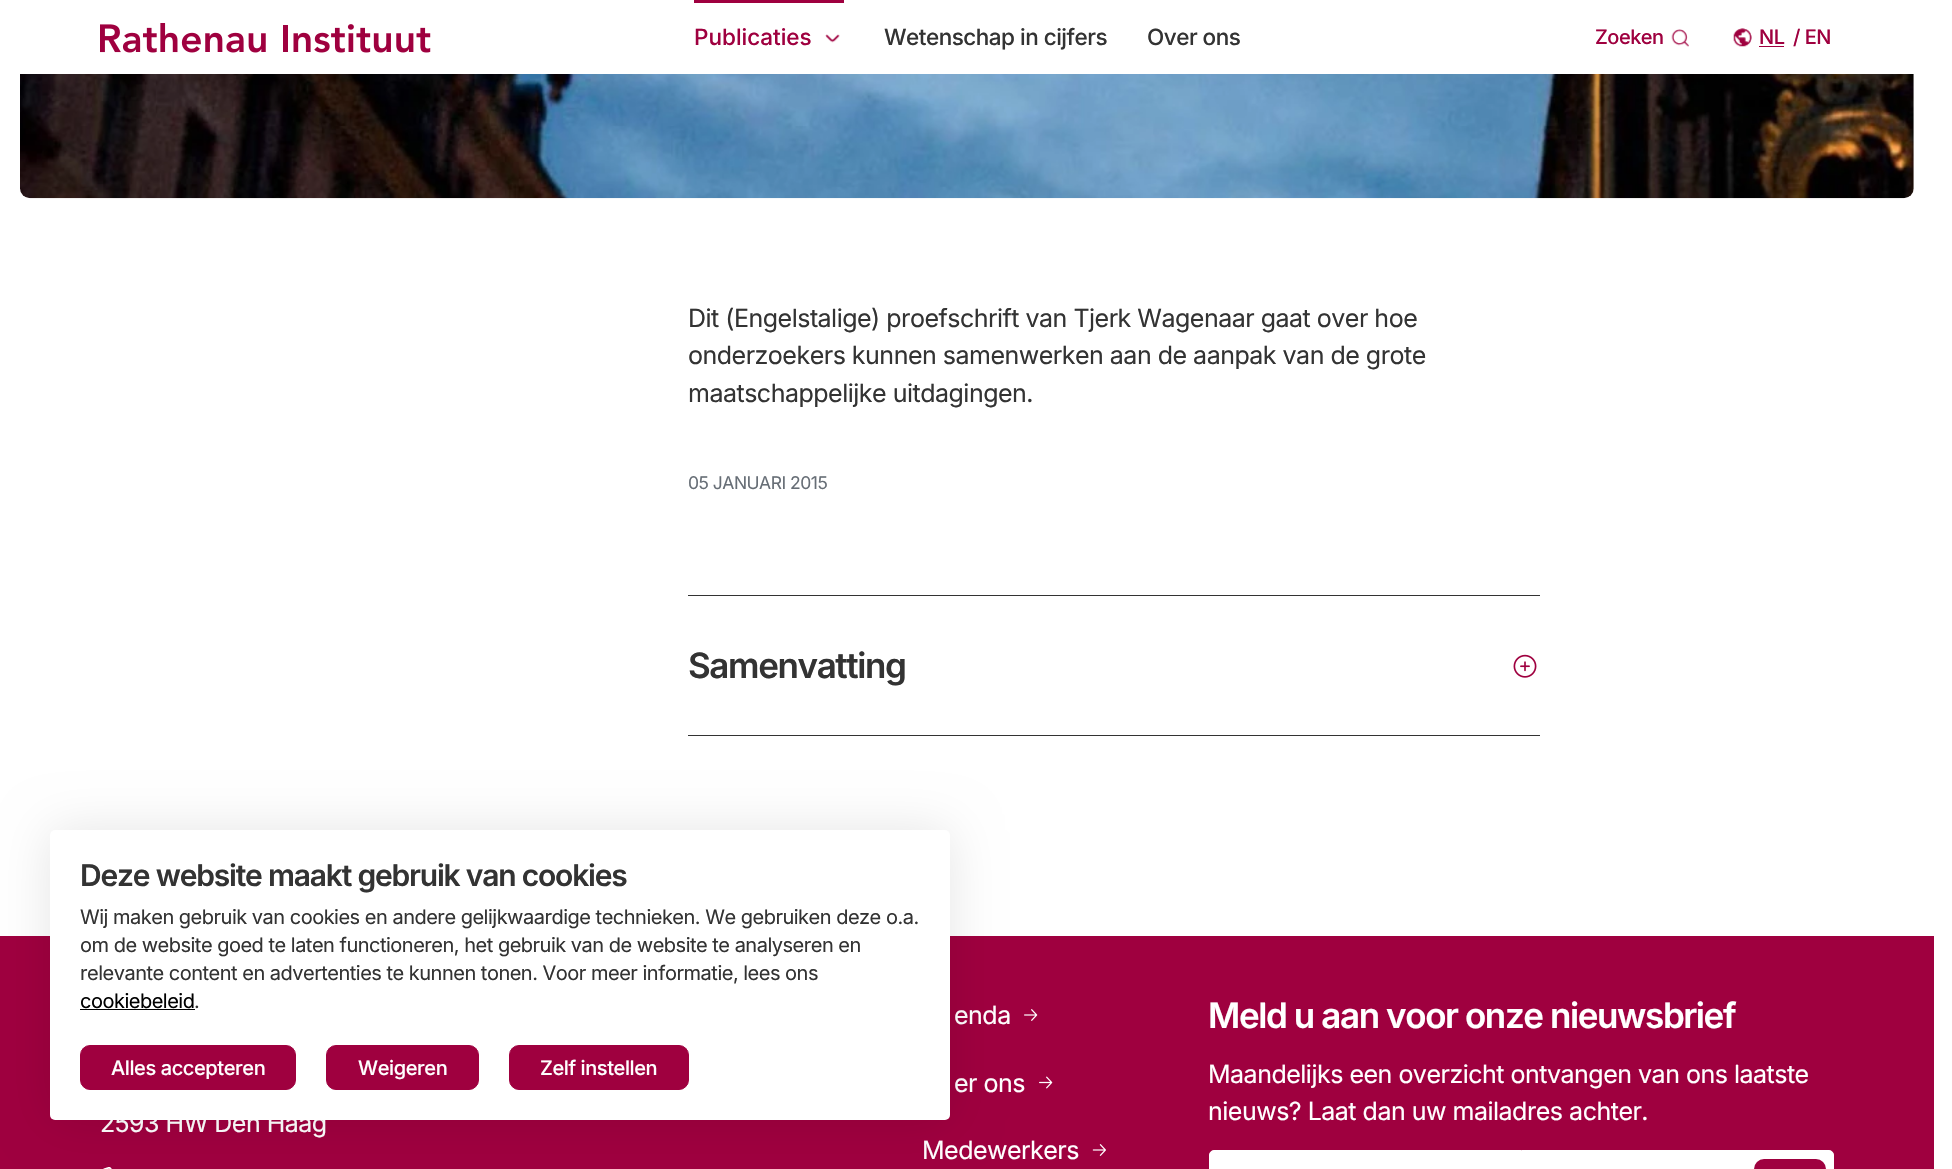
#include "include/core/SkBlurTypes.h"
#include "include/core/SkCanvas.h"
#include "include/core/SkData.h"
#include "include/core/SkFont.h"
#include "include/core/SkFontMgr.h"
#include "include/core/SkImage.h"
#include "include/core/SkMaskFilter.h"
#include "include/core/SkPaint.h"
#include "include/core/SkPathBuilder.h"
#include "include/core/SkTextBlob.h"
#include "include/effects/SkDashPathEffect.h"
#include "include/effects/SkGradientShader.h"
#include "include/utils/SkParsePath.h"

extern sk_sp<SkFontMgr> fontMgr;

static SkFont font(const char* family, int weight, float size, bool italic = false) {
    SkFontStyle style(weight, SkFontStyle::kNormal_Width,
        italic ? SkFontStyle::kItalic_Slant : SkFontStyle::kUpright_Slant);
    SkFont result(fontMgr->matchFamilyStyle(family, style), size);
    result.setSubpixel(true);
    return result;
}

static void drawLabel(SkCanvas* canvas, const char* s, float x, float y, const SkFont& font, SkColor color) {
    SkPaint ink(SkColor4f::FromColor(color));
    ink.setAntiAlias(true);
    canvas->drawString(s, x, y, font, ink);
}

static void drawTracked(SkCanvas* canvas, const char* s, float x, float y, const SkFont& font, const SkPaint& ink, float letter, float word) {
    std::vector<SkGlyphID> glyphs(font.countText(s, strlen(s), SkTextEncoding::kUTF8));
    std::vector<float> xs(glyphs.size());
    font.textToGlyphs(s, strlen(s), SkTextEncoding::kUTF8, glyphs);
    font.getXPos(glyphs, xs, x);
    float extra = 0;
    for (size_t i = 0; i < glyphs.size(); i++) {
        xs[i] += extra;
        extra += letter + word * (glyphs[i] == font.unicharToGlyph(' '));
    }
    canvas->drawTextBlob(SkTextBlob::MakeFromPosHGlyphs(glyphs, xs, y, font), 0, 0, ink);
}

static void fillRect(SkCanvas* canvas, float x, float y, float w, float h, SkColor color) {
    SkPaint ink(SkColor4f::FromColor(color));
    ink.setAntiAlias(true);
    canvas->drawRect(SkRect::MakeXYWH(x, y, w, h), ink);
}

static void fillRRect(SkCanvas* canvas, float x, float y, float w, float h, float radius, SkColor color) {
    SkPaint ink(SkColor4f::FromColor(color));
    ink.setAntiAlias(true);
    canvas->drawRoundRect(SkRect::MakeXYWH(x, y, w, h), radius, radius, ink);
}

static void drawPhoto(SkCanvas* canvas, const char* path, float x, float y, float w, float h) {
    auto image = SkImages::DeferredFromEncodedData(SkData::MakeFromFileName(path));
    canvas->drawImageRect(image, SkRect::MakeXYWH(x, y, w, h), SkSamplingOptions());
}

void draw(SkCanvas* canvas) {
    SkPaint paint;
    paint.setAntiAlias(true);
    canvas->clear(0xFFFFFFFF);
    drawPhoto(canvas, "assets/img1.png", 100, 23, 331, 30);
    fillRect(canvas, 694, 0, 150, 3, 0xFF9F003F);
    SkFont font1 = font("Inter", 500, 22.5f);
    drawLabel(canvas, "Publicaties", 694, 45, font1, 0xFF9F003F);
    drawPhoto(canvas, "assets/img2.png", 825, 34, 15, 9);
    paint.setColor(0xFF333333);
    drawTracked(canvas, "Wetenschap in cijfers", 884, 45, font1, paint, -0.5f, 0);
    drawTracked(canvas, "Over ons", 1147, 45, font1, paint, -0.5f, 0);
    SkFont font2 = font("Inter", 500, 20);
    paint.setColor(0xFF9F003F);
    drawTracked(canvas, "Zoeken", 1595, 44, font2, paint, -0.5f, 0);
    drawPhoto(canvas, "assets/img3.png", 1671, 29, 18, 18);
    drawPhoto(canvas, "assets/img4.png", 1733, 28, 19, 19);
    fillRect(canvas, 1759, 46, 25, 1, 0xFF9F003F);
    drawTracked(canvas, "NL", 1759, 44, font2, paint, -0.5f, 0);
    drawTracked(canvas, "/ EN", 1793, 44, font2, paint, -0.5f, 0);
    drawPhoto(canvas, "assets/img5.png", 20, 74, 1894, 125);
    SkFont font3 = font("Inter", 400, 25);
    paint.setColor(0xFF333333);
    drawTracked(canvas, "Dit (Engelstalige) proefschrift van Tjerk Wagenaar gaat over hoe", 688, 327, font3, paint, -0.5f, 0);
    drawTracked(canvas, "onderzoekers kunnen samenwerken aan de aanpak van de grote", 688, 364, font3, paint, -0.5f, 0);
    drawTracked(canvas, "maatschappelijke uitdagingen.", 688, 402, font3, paint, -0.5f, 0);
    SkFont font4 = font("Inter", 400, 17.5f);
    paint.setColor(0xFF676E76);
    drawTracked(canvas, "05 JANUARI 2015", 688, 489, font4, paint, -0.5f, 0);
    fillRect(canvas, 688, 595, 852, 1, 0xFF333333);
    fillRect(canvas, 688, 735, 852, 1, 0xFF333333);
    SkFont font5 = font("Inter", 600, 35);
    paint.setColor(0xFF333333);
    drawTracked(canvas, "Samenvatting", 688, 678, font5, paint, -1.4f, 0);
    drawPhoto(canvas, "assets/img6.png", 1513, 654, 24, 24);
    fillRect(canvas, 0, 936, 1934, 233, 0xFF9F003F);
    paint.setColor(0xFFFFFFFF);
    drawTracked(canvas, "2593 HW Den Haag", 100, 1132, font3, paint, -0.5f, 0);
    drawPhoto(canvas, "assets/img7.png", 103, 1167, 9, 2);
    drawTracked(canvas, "enda", 954, 1024, font3, paint, -0.5f, 0);
    drawPhoto(canvas, "assets/img8.png", 1024, 1009, 14, 12);
    drawTracked(canvas, "er ons", 954, 1092, font3, paint, -0.5f, 0);
    drawPhoto(canvas, "assets/img9.png", 1039, 1076, 14, 13);
    drawTracked(canvas, "Medewerkers", 922, 1159, font3, paint, -0.5f, 0);
    drawPhoto(canvas, "assets/img10.png", 1092, 1144, 14, 12);
    drawTracked(canvas, "Meld u aan voor onze nieuwsbrief", 1208, 1028, font5, paint, -1.4f, 0);
    drawTracked(canvas, "Maandelijks een overzicht ontvangen van ons laatste", 1208, 1083, font3, paint, -0.5f, 0);
    drawTracked(canvas, "nieuws? Laat dan uw mailadres achter.", 1208, 1120, font3, paint, -0.5f, 0);
    canvas->drawRoundRect(SkRect::MakeXYWH(1209.5f, 1150.5f, 624, 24), 4.5f, 4.5f, paint);
    paint.setStroke(true);
    paint.setStrokeWidth(1);
    canvas->drawRoundRect(SkRect::MakeXYWH(1209.5f, 1150.5f, 624, 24), 4.5f, 4.5f, paint);
    fillRRect(canvas, 1754, 1159, 72, 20, 10, 0xFF9F003F);
    paint.setStroke(false);
    paint.setColor(0x1A000000);
    paint.setMaskFilter(SkMaskFilter::MakeBlur(kNormal_SkBlurStyle, 25));
    canvas->drawRoundRect(SkRect::MakeXYWH(50, 830, 900, 290), 5, 5, paint);
    paint.setMaskFilter(nullptr);
    fillRRect(canvas, 50, 830, 900, 290, 5, 0xFFFFFFFF);
    SkFont font6 = font("Inter", 600, 30);
    paint.setColor(0xFF333333);
    drawTracked(canvas, "Deze website maakt gebruik van cookies", 80, 886, font6, paint, -1.2f, 0);
    SkFont font7 = font("Inter", 400, 20);
    drawTracked(canvas, "Wij maken gebruik van cookies en andere gelijkwaardige technieken. We gebruiken deze o.a.", 80, 924, font7, paint, -0.5f, 0);
    drawTracked(canvas, "om de website goed te laten functioneren, het gebruik van de website te analyseren en", 80, 952, font7, paint, -0.5f, 0);
    drawTracked(canvas, "relevante content en advertenties te kunnen tonen. Voor meer informatie, lees ons", 80, 980, font7, paint, -0.5f, 0);
    paint.setColor(0xFF000000);
    drawTracked(canvas, "cookiebeleid", 80, 1008, font7, paint, -0.5f, 0);
    fillRect(canvas, 80, 1009, 115, 1, 0xFF000000);
    paint.setColor(0xFF333333);
    drawTracked(canvas, ".", 194, 1008, font7, paint, -0.5f, 0);
    paint.setColor(0xFF9F003F);
    canvas->drawRoundRect(SkRect::MakeXYWH(80.5f, 1045.5f, 215, 44), 9.5f, 9.5f, paint);
    paint.setStroke(true);
    canvas->drawRoundRect(SkRect::MakeXYWH(80.5f, 1045.5f, 215, 44), 9.5f, 9.5f, paint);
    paint.setStroke(false);
    paint.setColor(0xFFFFFFFF);
    drawTracked(canvas, "Alles accepteren", 111, 1075, font2, paint, -0.4f, 0);
    paint.setColor(0xFF9F003F);
    canvas->drawRoundRect(SkRect::MakeXYWH(326.5f, 1045.5f, 152, 44), 9.5f, 9.5f, paint);
    paint.setStroke(true);
    canvas->drawRoundRect(SkRect::MakeXYWH(326.5f, 1045.5f, 152, 44), 9.5f, 9.5f, paint);
    paint.setStroke(false);
    paint.setColor(0xFFFFFFFF);
    drawTracked(canvas, "Weigeren", 358, 1075, font2, paint, -0.4f, 0);
    paint.setColor(0xFF9F003F);
    canvas->drawRoundRect(SkRect::MakeXYWH(509.5f, 1045.5f, 179, 44), 9.5f, 9.5f, paint);
    paint.setStroke(true);
    canvas->drawRoundRect(SkRect::MakeXYWH(509.5f, 1045.5f, 179, 44), 9.5f, 9.5f, paint);
    paint.setStroke(false);
    paint.setColor(0xFFFFFFFF);
    drawTracked(canvas, "Zelf instellen", 540, 1075, font2, paint, -0.4f, 0);
}
